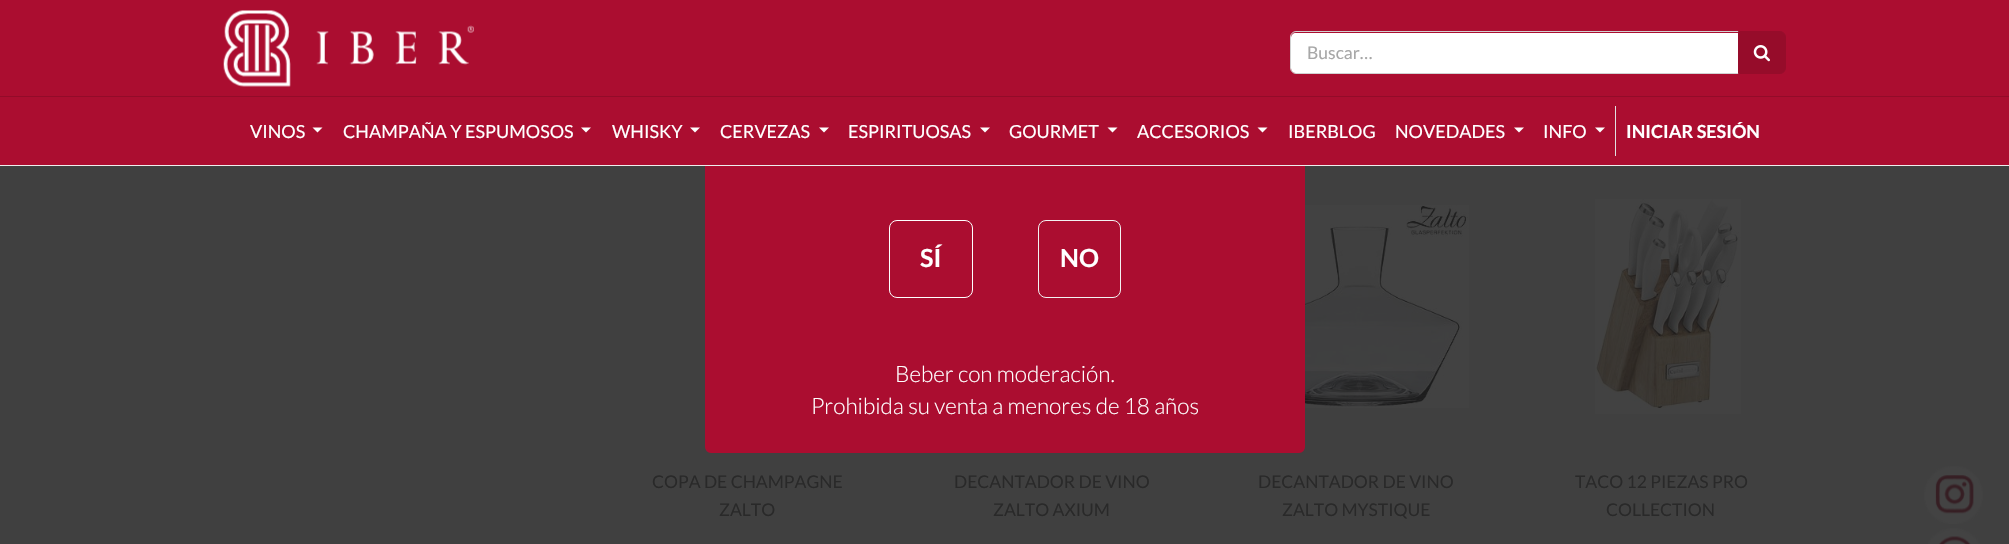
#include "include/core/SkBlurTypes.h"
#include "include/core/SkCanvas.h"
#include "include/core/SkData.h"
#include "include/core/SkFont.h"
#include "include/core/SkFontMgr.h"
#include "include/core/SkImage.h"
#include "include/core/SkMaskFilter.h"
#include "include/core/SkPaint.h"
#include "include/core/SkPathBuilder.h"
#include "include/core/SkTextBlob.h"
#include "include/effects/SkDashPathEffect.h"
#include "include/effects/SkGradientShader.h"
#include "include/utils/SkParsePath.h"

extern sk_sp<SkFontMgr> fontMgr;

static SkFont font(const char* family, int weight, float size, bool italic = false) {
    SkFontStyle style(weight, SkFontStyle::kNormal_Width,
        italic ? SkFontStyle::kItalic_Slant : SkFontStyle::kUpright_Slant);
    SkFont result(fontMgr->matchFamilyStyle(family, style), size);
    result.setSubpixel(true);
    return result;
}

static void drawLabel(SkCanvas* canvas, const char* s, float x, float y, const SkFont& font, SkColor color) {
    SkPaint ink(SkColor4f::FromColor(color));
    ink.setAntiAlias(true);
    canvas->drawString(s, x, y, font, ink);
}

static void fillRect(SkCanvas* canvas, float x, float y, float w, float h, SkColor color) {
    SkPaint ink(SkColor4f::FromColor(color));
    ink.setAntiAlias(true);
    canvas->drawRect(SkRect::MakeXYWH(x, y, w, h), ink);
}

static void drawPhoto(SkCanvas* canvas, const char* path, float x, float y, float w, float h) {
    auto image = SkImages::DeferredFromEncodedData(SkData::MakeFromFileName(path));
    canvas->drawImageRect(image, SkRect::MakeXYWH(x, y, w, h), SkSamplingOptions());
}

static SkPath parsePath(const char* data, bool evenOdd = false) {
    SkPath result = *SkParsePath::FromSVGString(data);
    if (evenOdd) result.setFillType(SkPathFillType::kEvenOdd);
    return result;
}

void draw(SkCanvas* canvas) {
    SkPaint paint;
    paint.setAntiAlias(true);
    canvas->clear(0xFF404040);
    paint.setColor(0xFFAB0D30);
    canvas->drawRoundRect(SkRect::MakeXYWH(708, 96, 594, 354), 3, 3, paint);
    paint.setStroke(true);
    paint.setStrokeWidth(6);
    canvas->drawRoundRect(SkRect::MakeXYWH(708, 96, 594, 354), 3, 3, paint);
    fillRect(canvas, 0, 165, 2009, 1, 0xFFEEEEEE);
    fillRect(canvas, 0, 0, 2009, 96, 0xFFAB0D30);
    drawPhoto(canvas, "assets/img1.png", 223, 10, 251, 77);
    paint.setStroke(false);
    paint.setColor(0xFFFFFFFF);
    canvas->drawPath(parsePath("M1296 33H1738V73H1296C1293 73 1291 71 1291 68V38C1291 35 1293 33 1296 33Z"), paint);
    paint.setStroke(true);
    paint.setStrokeWidth(1);
    paint.setColor(0xFFD1D1D1);
    canvas->drawPath(parsePath("M1296 31.5H1738.5V73.5H1296C1293 73.5 1290.5 71 1290.5 68V37C1290.5 34 1293 31.5 1296 31.5Z"), paint);
    SkFont font1 = font("Lato", 400, 17.5f);
    drawLabel(canvas, "Buscar…", 1307, 59, font1, 0xFFA7A7A7);
    paint.setStroke(false);
    paint.setColor(0xFF960C2A);
    canvas->drawPath(parsePath("M1738.5 31.5H1780C1783 31.5 1785.5 34 1785.5 37V68C1785.5 71 1783 73.5 1780 73.5H1738.5Z"), paint);
    paint.setStroke(true);
    canvas->drawPath(parsePath("M1738.5 31.5H1780C1783 31.5 1785.5 34 1785.5 37V68C1785.5 71 1783 73.5 1780 73.5H1738.5Z"), paint);
    drawPhoto(canvas, "assets/img2.png", 1753, 45, 17, 17);
    fillRect(canvas, 0, 97, 2009, 68, 0xFFAB0D30);
    fillRect(canvas, 0, 96, 2009, 1, 0xFF930B29);
    SkFont font2 = font("Lato", 400, 18);
    drawLabel(canvas, "VINOS", 250, 138, font2, 0xFFFFFFFF);
    paint.setStroke(false);
    paint.setColor(0xFFFEFEFE);
    canvas->drawPath(parsePath("M312.5 127.5H322.5L317.5 132.5Z"), paint);
    drawLabel(canvas, "CHAMPAÑA Y ESPUMOSOS", 343, 138, font2, 0xFFFFFFFF);
    canvas->drawPath(parsePath("M581 127.5H591L586 132.5Z"), paint);
    drawLabel(canvas, "WHISKY", 612, 138, font2, 0xFFFFFFFF);
    canvas->drawPath(parsePath("M690 127.5H700L695 132.5Z"), paint);
    drawLabel(canvas, "CERVEZAS", 720, 138, font2, 0xFFFFFFFF);
    canvas->drawPath(parsePath("M819 127.5H829L824 132.5Z"), paint);
    drawLabel(canvas, "ESPIRITUOSAS", 848, 138, font2, 0xFFFFFFFF);
    canvas->drawPath(parsePath("M980 127.5H990L985 132.5Z"), paint);
    drawLabel(canvas, "GOURMET", 1009, 138, font2, 0xFFFFFFFF);
    canvas->drawPath(parsePath("M1107.5 127.5H1117.5L1112.5 132.5Z"), paint);
    drawLabel(canvas, "ACCESORIOS", 1137, 138, font2, 0xFFFFFFFF);
    canvas->drawPath(parsePath("M1257.5 127.5H1267.5L1262.5 132.5Z"), paint);
    drawLabel(canvas, "IBERBLOG", 1288, 138, font2, 0xFFFFFFFF);
    drawLabel(canvas, "NOVEDADES", 1395, 138, font2, 0xFFFFFFFF);
    canvas->drawPath(parsePath("M1514 127.5H1524L1519 132.5Z"), paint);
    drawLabel(canvas, "INFO", 1543, 138, font2, 0xFFFFFFFF);
    canvas->drawPath(parsePath("M1595 127.5H1605L1600 132.5Z"), paint);
    fillRect(canvas, 1615, 106, 1, 50, 0xFFE0E0E0);
    SkFont font3 = font("Lato", 700, 18);
    drawLabel(canvas, "INICIAR SESIÓN", 1626, 138, font3, 0xFFFFFFFF);
    drawLabel(canvas, "COPA DE CHAMPAGNE", 652, 488, font1, 0xFF292929);
    drawLabel(canvas, "ZALTO", 719, 516, font1, 0xFF292929);
    drawLabel(canvas, "DECANTADOR DE VINO", 954, 488, font1, 0xFF292929);
    drawLabel(canvas, "ZALTO AXIUM", 993, 516, font1, 0xFF292929);
    drawPhoto(canvas, "assets/img3.png", 1305, 205, 164, 203);
    drawLabel(canvas, "DECANTADOR DE VINO", 1258, 488, font1, 0xFF292929);
    drawLabel(canvas, "ZALTO MYSTIQUE", 1282, 516, font1, 0xFF292929);
    drawPhoto(canvas, "assets/img4.png", 1595, 199, 146, 215);
    drawLabel(canvas, "TACO 12 PIEZAS PRO", 1575, 488, font1, 0xFF292929);
    drawLabel(canvas, "COLLECTION", 1606, 516, font1, 0xFF292929);
    paint.setStroke(true);
    paint.setColor(0xFFFFFFFF);
    canvas->drawRoundRect(SkRect::MakeXYWH(889.5f, 220.5f, 83, 77), 7.5f, 7.5f, paint);
    SkFont font4 = font("Lato", 700, 25);
    drawLabel(canvas, "SÍ", 920, 267, font4, 0xFFFFFFFF);
    paint.setColor(0xFFF2F2F2);
    canvas->drawRoundRect(SkRect::MakeXYWH(1038.5f, 220.5f, 82, 77), 7.5f, 7.5f, paint);
    drawLabel(canvas, "NO", 1060, 267, font4, 0xFFFFFFFF);
    SkFont font5 = font("Lato", 300, 22.5f);
    drawLabel(canvas, "Beber con moderación.", 895, 382, font5, 0xFFFFFFFF);
    drawLabel(canvas, "Prohibida su venta a menores de 18 años", 811, 414, font5, 0xFFFFFFFF);
    drawPhoto(canvas, "assets/img5.png", 1924, 466, 59, 58);
    drawPhoto(canvas, "assets/img6.png", 1927, 528, 53, 16);
}
